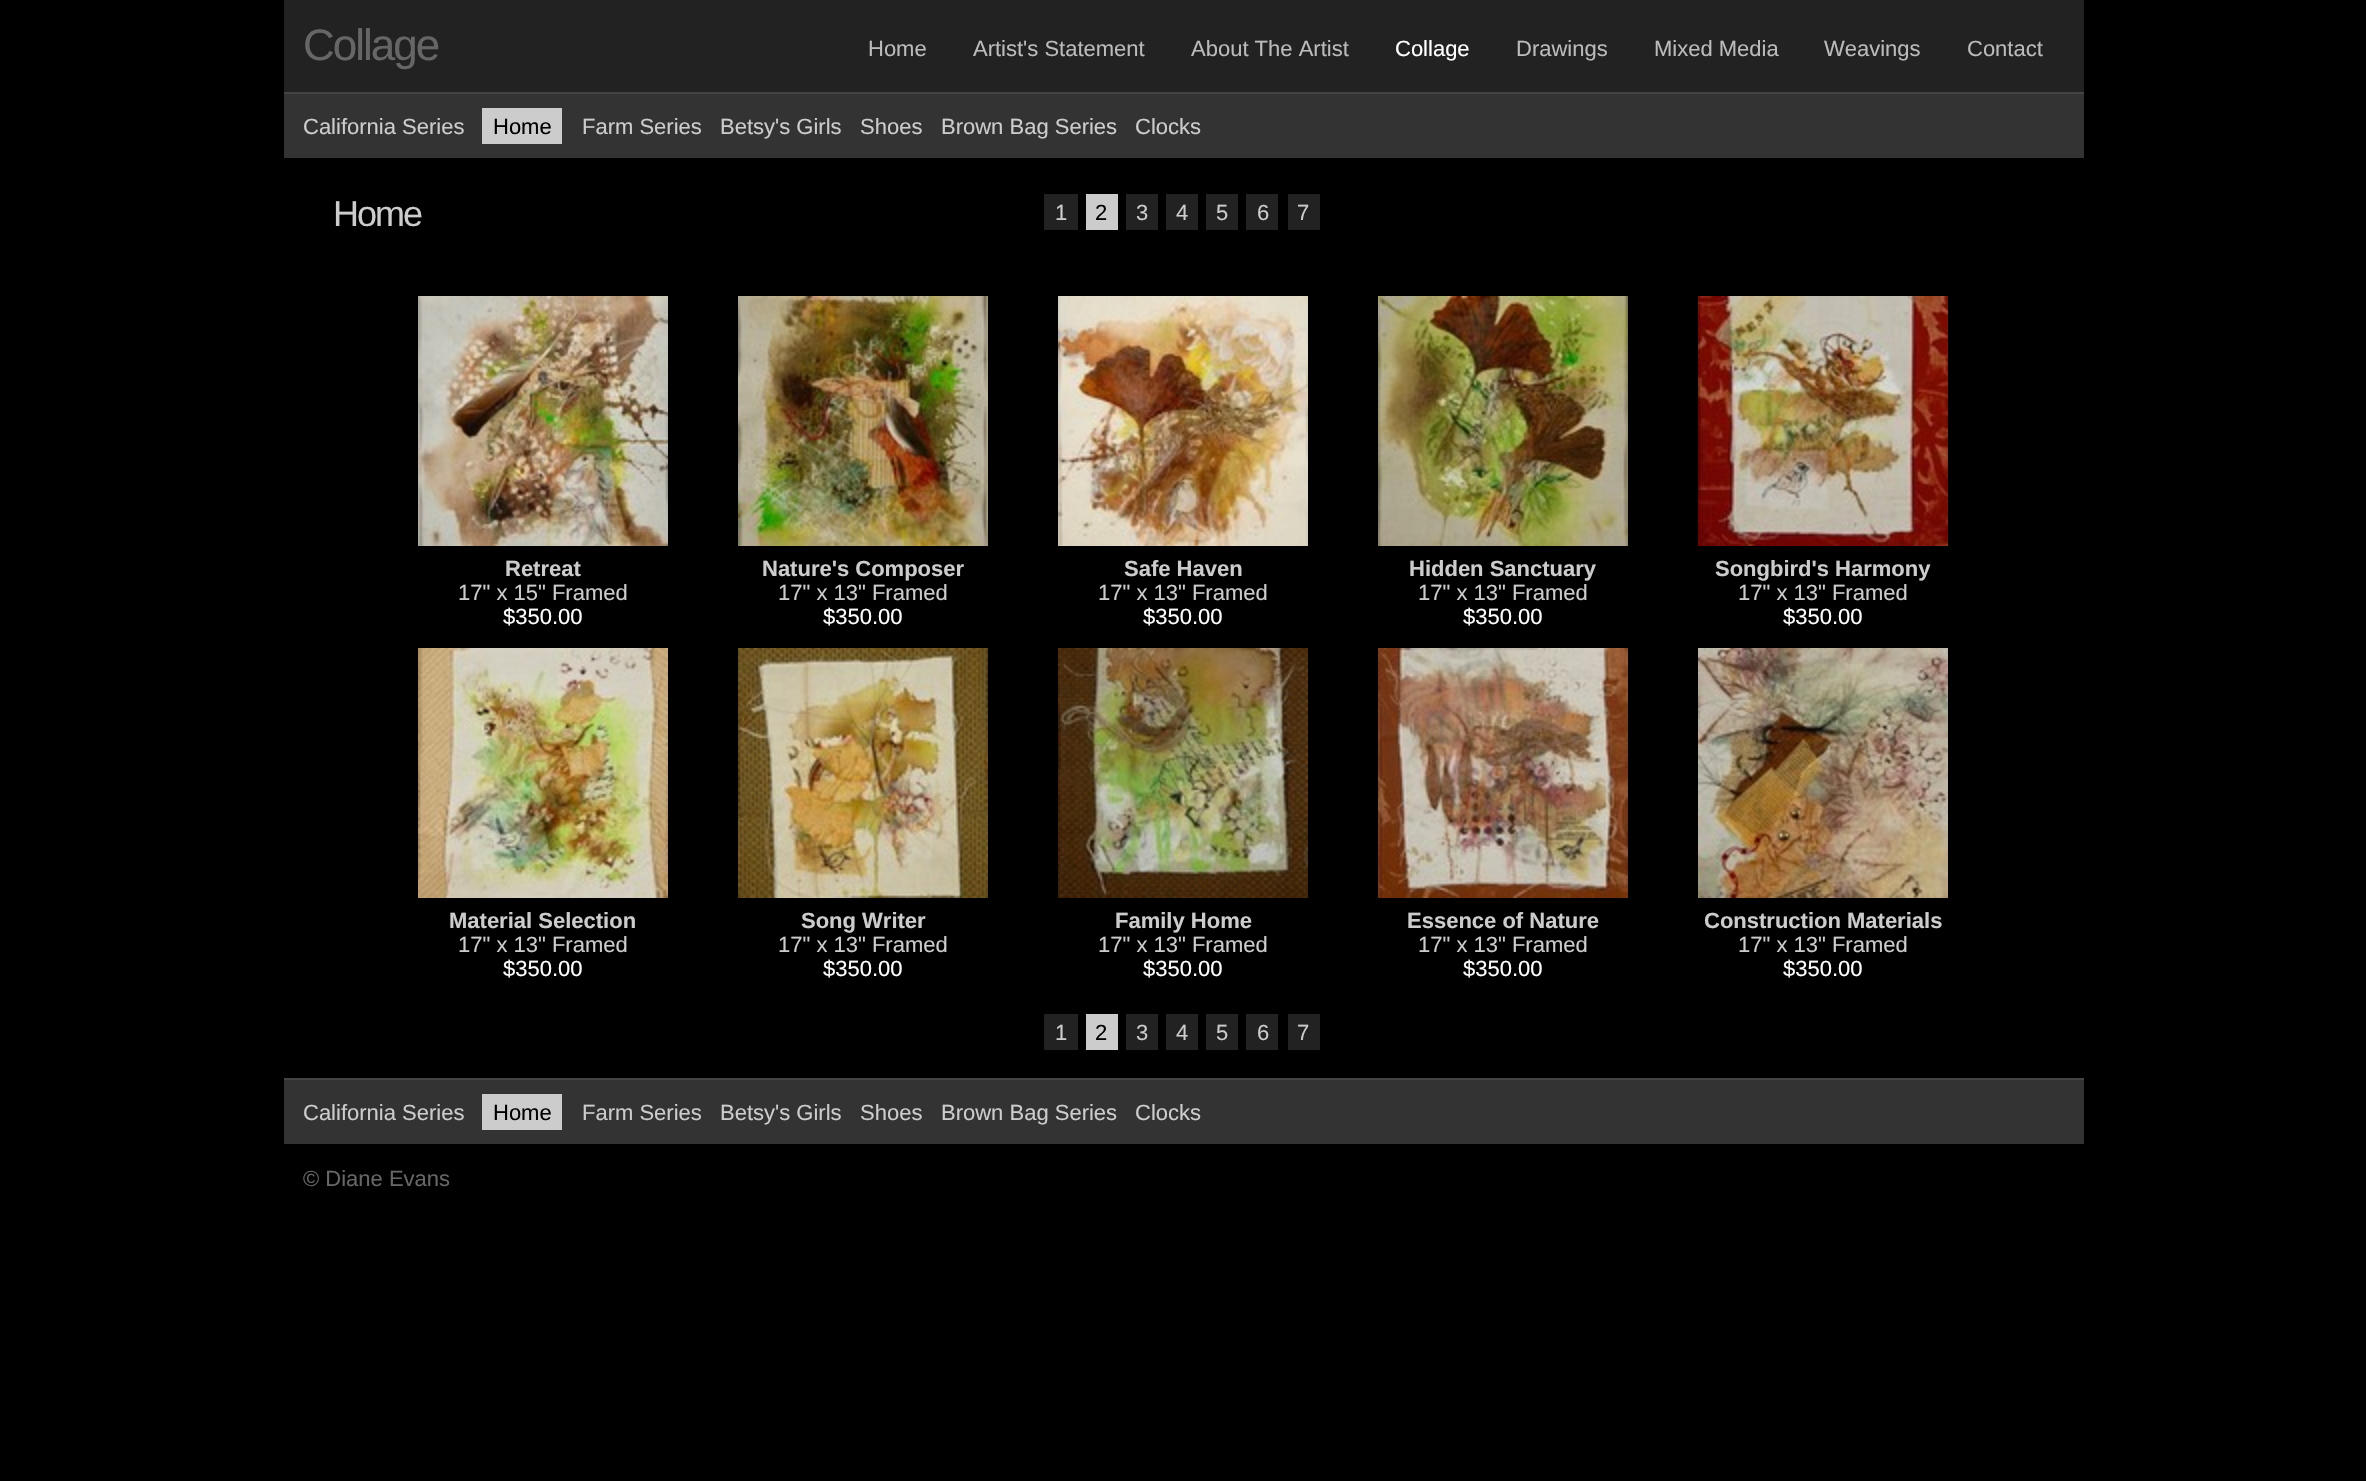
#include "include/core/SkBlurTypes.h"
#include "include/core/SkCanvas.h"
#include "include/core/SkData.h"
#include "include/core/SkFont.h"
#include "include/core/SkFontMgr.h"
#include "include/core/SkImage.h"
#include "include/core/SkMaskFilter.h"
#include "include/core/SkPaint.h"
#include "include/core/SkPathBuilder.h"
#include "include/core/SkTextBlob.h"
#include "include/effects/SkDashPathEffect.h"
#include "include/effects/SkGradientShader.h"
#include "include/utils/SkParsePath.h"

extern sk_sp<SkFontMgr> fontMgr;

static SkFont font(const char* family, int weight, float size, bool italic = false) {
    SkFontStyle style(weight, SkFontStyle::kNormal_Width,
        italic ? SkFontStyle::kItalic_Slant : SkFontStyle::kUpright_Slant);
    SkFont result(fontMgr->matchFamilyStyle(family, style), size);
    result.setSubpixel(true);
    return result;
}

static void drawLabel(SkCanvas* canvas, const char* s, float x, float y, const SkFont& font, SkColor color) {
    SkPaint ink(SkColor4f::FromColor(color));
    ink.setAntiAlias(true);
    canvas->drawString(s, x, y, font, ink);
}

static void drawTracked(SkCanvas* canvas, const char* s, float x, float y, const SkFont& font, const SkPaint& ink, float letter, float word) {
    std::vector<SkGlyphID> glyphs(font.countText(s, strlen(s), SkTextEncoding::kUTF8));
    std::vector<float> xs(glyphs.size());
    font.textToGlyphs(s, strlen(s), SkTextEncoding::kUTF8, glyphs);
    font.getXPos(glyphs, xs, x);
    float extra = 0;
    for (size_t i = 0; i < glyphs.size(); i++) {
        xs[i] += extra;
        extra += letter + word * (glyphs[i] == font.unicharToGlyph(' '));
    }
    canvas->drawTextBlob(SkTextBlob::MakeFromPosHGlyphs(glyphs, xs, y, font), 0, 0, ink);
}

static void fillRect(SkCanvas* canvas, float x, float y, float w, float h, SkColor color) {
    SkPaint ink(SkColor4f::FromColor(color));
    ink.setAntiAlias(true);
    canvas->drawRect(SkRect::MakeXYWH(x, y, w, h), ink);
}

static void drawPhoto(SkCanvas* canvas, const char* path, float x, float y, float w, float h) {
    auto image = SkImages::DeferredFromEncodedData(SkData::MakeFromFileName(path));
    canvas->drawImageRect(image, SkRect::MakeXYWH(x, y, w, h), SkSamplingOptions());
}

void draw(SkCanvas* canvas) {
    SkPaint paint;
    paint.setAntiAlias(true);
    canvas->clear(0xFF000000);
    fillRect(canvas, 284, 0, 1800, 92, 0xFF222222);
    SkFont font1 = font("Liberation Sans", 400, 44);
    paint.setColor(0xFF666666);
    drawTracked(canvas, "Collage", 303, 60, font1, paint, -2, 0);
    SkFont font2 = font("Liberation Sans", 400, 22);
    drawLabel(canvas, "Home", 868, 56, font2, 0xFFBBBBBB);
    drawLabel(canvas, "Artist's Statement", 973, 56, font2, 0xFFBBBBBB);
    drawLabel(canvas, "About The Artist", 1191, 56, font2, 0xFFBBBBBB);
    drawLabel(canvas, "Collage", 1395, 56, font2, 0xFFFFFFFF);
    drawLabel(canvas, "Drawings", 1516, 56, font2, 0xFFBBBBBB);
    drawLabel(canvas, "Mixed Media", 1654, 56, font2, 0xFFBBBBBB);
    drawLabel(canvas, "Weavings", 1824, 56, font2, 0xFFBBBBBB);
    drawLabel(canvas, "Contact", 1967, 56, font2, 0xFFBBBBBB);
    fillRect(canvas, 284, 94, 1800, 64, 0xFF333333);
    fillRect(canvas, 284, 92, 1800, 2, 0xFF444444);
    drawLabel(canvas, "California Series", 303, 134, font2, 0xFFCCCCCC);
    fillRect(canvas, 482, 108, 80, 36, 0xFFCCCCCC);
    drawLabel(canvas, "Home", 493, 134, font2, 0xFF000000);
    drawLabel(canvas, "Farm Series", 582, 134, font2, 0xFFCCCCCC);
    drawLabel(canvas, "Betsy's Girls", 720, 134, font2, 0xFFCCCCCC);
    drawLabel(canvas, "Shoes", 860, 134, font2, 0xFFCCCCCC);
    drawLabel(canvas, "Brown Bag Series", 941, 134, font2, 0xFFCCCCCC);
    drawLabel(canvas, "Clocks", 1135, 134, font2, 0xFFCCCCCC);
    SkFont font3 = font("Liberation Sans", 400, 36);
    paint.setColor(0xFFCCCCCC);
    drawTracked(canvas, "Home", 333, 226, font3, paint, -2, 0);
    fillRect(canvas, 1044, 194, 34, 36, 0xFF222222);
    drawLabel(canvas, "1", 1055, 220, font2, 0xFFCCCCCC);
    fillRect(canvas, 1086, 194, 32, 36, 0xFFCCCCCC);
    drawLabel(canvas, "2", 1095, 220, font2, 0xFF000000);
    fillRect(canvas, 1126, 194, 32, 36, 0xFF222222);
    drawLabel(canvas, "3", 1136, 220, font2, 0xFFCCCCCC);
    fillRect(canvas, 1166, 194, 32, 36, 0xFF222222);
    drawLabel(canvas, "4", 1176, 220, font2, 0xFFCCCCCC);
    fillRect(canvas, 1206, 194, 32, 36, 0xFF222222);
    drawLabel(canvas, "5", 1216, 220, font2, 0xFFCCCCCC);
    fillRect(canvas, 1246, 194, 32, 36, 0xFF222222);
    drawLabel(canvas, "6", 1257, 220, font2, 0xFFCCCCCC);
    fillRect(canvas, 1288, 194, 32, 36, 0xFF222222);
    drawLabel(canvas, "7", 1297, 220, font2, 0xFFCCCCCC);
    drawPhoto(canvas, "assets/img1.png", 418, 296, 250, 250);
    SkFont font4 = font("Liberation Sans", 700, 22);
    drawLabel(canvas, "Retreat", 505, 576, font4, 0xFFCCCCCC);
    drawLabel(canvas, "17\" x 15\" Framed", 458, 600, font2, 0xFFCCCCCC);
    drawLabel(canvas, "$350.00", 503, 624, font2, 0xFFFFFFFF);
    drawPhoto(canvas, "assets/img2.png", 738, 296, 250, 250);
    drawLabel(canvas, "Nature's Composer", 762, 576, font4, 0xFFCCCCCC);
    drawLabel(canvas, "17\" x 13\" Framed", 778, 600, font2, 0xFFCCCCCC);
    drawLabel(canvas, "$350.00", 823, 624, font2, 0xFFFFFFFF);
    drawPhoto(canvas, "assets/img3.png", 1058, 296, 250, 250);
    drawLabel(canvas, "Safe Haven", 1124, 576, font4, 0xFFCCCCCC);
    drawLabel(canvas, "17\" x 13\" Framed", 1098, 600, font2, 0xFFCCCCCC);
    drawLabel(canvas, "$350.00", 1143, 624, font2, 0xFFFFFFFF);
    drawPhoto(canvas, "assets/img4.png", 1378, 296, 250, 250);
    drawLabel(canvas, "Hidden Sanctuary", 1409, 576, font4, 0xFFCCCCCC);
    drawLabel(canvas, "17\" x 13\" Framed", 1418, 600, font2, 0xFFCCCCCC);
    drawLabel(canvas, "$350.00", 1463, 624, font2, 0xFFFFFFFF);
    drawPhoto(canvas, "assets/img5.png", 1698, 296, 250, 250);
    drawLabel(canvas, "Songbird's Harmony", 1715, 576, font4, 0xFFCCCCCC);
    drawLabel(canvas, "17\" x 13\" Framed", 1738, 600, font2, 0xFFCCCCCC);
    drawLabel(canvas, "$350.00", 1783, 624, font2, 0xFFFFFFFF);
    drawPhoto(canvas, "assets/img6.png", 418, 648, 250, 250);
    drawLabel(canvas, "Material Selection", 449, 928, font4, 0xFFCCCCCC);
    drawLabel(canvas, "17\" x 13\" Framed", 458, 952, font2, 0xFFCCCCCC);
    drawLabel(canvas, "$350.00", 503, 976, font2, 0xFFFFFFFF);
    drawPhoto(canvas, "assets/img7.png", 738, 648, 250, 250);
    drawLabel(canvas, "Song Writer", 801, 928, font4, 0xFFCCCCCC);
    drawLabel(canvas, "17\" x 13\" Framed", 778, 952, font2, 0xFFCCCCCC);
    drawLabel(canvas, "$350.00", 823, 976, font2, 0xFFFFFFFF);
    drawPhoto(canvas, "assets/img8.png", 1058, 648, 250, 250);
    drawLabel(canvas, "Family Home", 1115, 928, font4, 0xFFCCCCCC);
    drawLabel(canvas, "17\" x 13\" Framed", 1098, 952, font2, 0xFFCCCCCC);
    drawLabel(canvas, "$350.00", 1143, 976, font2, 0xFFFFFFFF);
    drawPhoto(canvas, "assets/img9.png", 1378, 648, 250, 250);
    drawLabel(canvas, "Essence of Nature", 1407, 928, font4, 0xFFCCCCCC);
    drawLabel(canvas, "17\" x 13\" Framed", 1418, 952, font2, 0xFFCCCCCC);
    drawLabel(canvas, "$350.00", 1463, 976, font2, 0xFFFFFFFF);
    drawPhoto(canvas, "assets/img10.png", 1698, 648, 250, 250);
    drawLabel(canvas, "Construction Materials", 1704, 928, font4, 0xFFCCCCCC);
    drawLabel(canvas, "17\" x 13\" Framed", 1738, 952, font2, 0xFFCCCCCC);
    drawLabel(canvas, "$350.00", 1783, 976, font2, 0xFFFFFFFF);
    fillRect(canvas, 1044, 1014, 34, 36, 0xFF222222);
    drawLabel(canvas, "1", 1055, 1040, font2, 0xFFCCCCCC);
    fillRect(canvas, 1086, 1014, 32, 36, 0xFFCCCCCC);
    drawLabel(canvas, "2", 1095, 1040, font2, 0xFF000000);
    fillRect(canvas, 1126, 1014, 32, 36, 0xFF222222);
    drawLabel(canvas, "3", 1136, 1040, font2, 0xFFCCCCCC);
    fillRect(canvas, 1166, 1014, 32, 36, 0xFF222222);
    drawLabel(canvas, "4", 1176, 1040, font2, 0xFFCCCCCC);
    fillRect(canvas, 1206, 1014, 32, 36, 0xFF222222);
    drawLabel(canvas, "5", 1216, 1040, font2, 0xFFCCCCCC);
    fillRect(canvas, 1246, 1014, 32, 36, 0xFF222222);
    drawLabel(canvas, "6", 1257, 1040, font2, 0xFFCCCCCC);
    fillRect(canvas, 1288, 1014, 32, 36, 0xFF222222);
    drawLabel(canvas, "7", 1297, 1040, font2, 0xFFCCCCCC);
    fillRect(canvas, 284, 1080, 1800, 64, 0xFF333333);
    fillRect(canvas, 284, 1078, 1800, 2, 0xFF444444);
    drawLabel(canvas, "California Series", 303, 1120, font2, 0xFFCCCCCC);
    fillRect(canvas, 482, 1094, 80, 36, 0xFFCCCCCC);
    drawLabel(canvas, "Home", 493, 1120, font2, 0xFF000000);
    drawLabel(canvas, "Farm Series", 582, 1120, font2, 0xFFCCCCCC);
    drawLabel(canvas, "Betsy's Girls", 720, 1120, font2, 0xFFCCCCCC);
    drawLabel(canvas, "Shoes", 860, 1120, font2, 0xFFCCCCCC);
    drawLabel(canvas, "Brown Bag Series", 941, 1120, font2, 0xFFCCCCCC);
    drawLabel(canvas, "Clocks", 1135, 1120, font2, 0xFFCCCCCC);
    drawLabel(canvas, "© Diane Evans", 303, 1186, font2, 0xFF666666);
}
